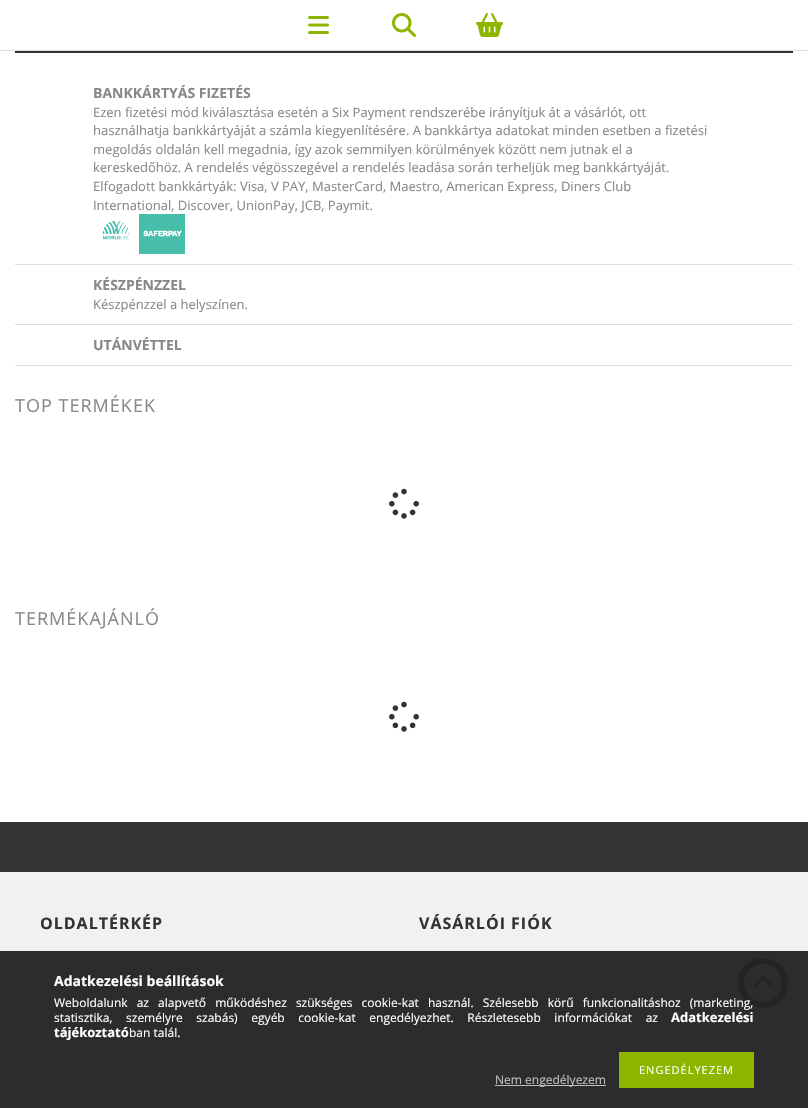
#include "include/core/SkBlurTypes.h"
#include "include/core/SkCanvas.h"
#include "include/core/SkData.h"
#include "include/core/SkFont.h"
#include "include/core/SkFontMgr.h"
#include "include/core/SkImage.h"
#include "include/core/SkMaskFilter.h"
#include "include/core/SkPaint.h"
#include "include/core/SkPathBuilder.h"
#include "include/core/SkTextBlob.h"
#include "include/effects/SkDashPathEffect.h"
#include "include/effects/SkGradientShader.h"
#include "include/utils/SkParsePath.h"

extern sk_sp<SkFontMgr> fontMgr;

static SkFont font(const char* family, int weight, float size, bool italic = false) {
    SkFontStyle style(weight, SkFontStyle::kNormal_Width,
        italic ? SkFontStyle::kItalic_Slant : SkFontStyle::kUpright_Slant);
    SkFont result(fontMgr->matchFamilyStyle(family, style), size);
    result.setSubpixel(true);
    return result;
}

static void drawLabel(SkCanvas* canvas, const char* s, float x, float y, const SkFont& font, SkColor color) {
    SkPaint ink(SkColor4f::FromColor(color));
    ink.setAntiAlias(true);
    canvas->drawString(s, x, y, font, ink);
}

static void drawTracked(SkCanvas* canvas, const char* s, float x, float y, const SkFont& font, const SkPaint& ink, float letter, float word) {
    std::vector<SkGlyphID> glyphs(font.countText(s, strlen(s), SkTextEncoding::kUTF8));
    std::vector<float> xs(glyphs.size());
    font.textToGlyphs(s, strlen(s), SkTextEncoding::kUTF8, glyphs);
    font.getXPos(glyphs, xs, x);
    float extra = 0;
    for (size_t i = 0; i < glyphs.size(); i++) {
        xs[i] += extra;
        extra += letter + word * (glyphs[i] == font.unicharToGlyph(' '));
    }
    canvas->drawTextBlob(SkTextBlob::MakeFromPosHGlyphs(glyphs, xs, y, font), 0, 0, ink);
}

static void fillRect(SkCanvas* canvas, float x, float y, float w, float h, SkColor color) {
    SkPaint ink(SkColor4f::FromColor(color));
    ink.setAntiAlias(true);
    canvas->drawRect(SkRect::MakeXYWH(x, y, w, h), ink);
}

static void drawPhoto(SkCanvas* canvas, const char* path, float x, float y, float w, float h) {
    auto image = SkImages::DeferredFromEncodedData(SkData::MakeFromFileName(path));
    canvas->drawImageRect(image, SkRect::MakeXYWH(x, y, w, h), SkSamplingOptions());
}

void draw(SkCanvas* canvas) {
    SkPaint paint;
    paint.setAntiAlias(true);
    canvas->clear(0xFFFFFFFF);
    fillRect(canvas, 0, 50, 808, 1, 0xFFDDDDDD);
    drawPhoto(canvas, "assets/img1.png", 308, 16, 21, 18);
    drawPhoto(canvas, "assets/img2.png", 392, 13, 24, 24);
    drawPhoto(canvas, "assets/img3.png", 476, 13, 27, 24);
    fillRect(canvas, 15, 51, 778, 2, 0xFF333333);
    fillRect(canvas, 15, 264, 778, 1, 0xFFDDDDDD);
    SkFont font1 = font("Open Sans", 700, 14);
    drawLabel(canvas, "BANKKÁRTYÁS FIZETÉS", 93, 98, font1, 0xFF888888);
    SkFont font2 = font("Open Sans", 400, 13);
    drawLabel(canvas, "Ezen fizetési mód kiválasztása esetén a Six Payment rendszerébe irányítjuk át a vásárlót, ott", 93, 117, font2, 0xFF888888);
    drawLabel(canvas, "használhatja bankkártyáját a számla kiegyenlítésére. A bankkártya adatokat minden esetben a fizetési", 93, 135, font2, 0xFF888888);
    drawLabel(canvas, "megoldás oldalán kell megadnia, így azok semmilyen körülmények között nem jutnak el a", 93, 154, font2, 0xFF888888);
    drawLabel(canvas, "kereskedőhöz. A rendelés végösszegével a rendelés leadása során terheljük meg bankkártyáját.", 93, 172, font2, 0xFF888888);
    drawLabel(canvas, "Elfogadott bankkártyák: Visa, V PAY, MasterCard, Maestro, American Express, Diners Club", 93, 191, font2, 0xFF888888);
    drawLabel(canvas, "International, Discover, UnionPay, JCB, Paymit.", 93, 210, font2, 0xFF888888);
    drawPhoto(canvas, "assets/img4.png", 102, 214, 83, 40);
    fillRect(canvas, 15, 324, 778, 1, 0xFFDDDDDD);
    drawLabel(canvas, "KÉSZPÉNZZEL", 93, 290, font1, 0xFF888888);
    drawLabel(canvas, "Készpénzzel a helyszínen.", 93, 309, font2, 0xFF888888);
    fillRect(canvas, 15, 365, 778, 1, 0xFFDDDDDD);
    drawLabel(canvas, "UTÁNVÉTTEL", 93, 350, font1, 0xFF888888);
    SkFont font3 = font("Open Sans", 400, 18);
    paint.setColor(0xFF888888);
    drawTracked(canvas, "TOP TERMÉKEK", 15, 412, font3, paint, 1, 0);
    drawPhoto(canvas, "assets/img5.png", 389, 488, 30, 31);
    drawTracked(canvas, "TERMÉKAJÁNLÓ", 15, 625, font3, paint, 1, 0);
    drawPhoto(canvas, "assets/img5.png", 389, 701, 30, 31);
    fillRect(canvas, 0, 822, 808, 50, 0xFF333333);
    fillRect(canvas, 0, 872, 808, 79, 0xFFF1F1F1);
    fillRect(canvas, 0, 951, 808, 157, 0xFF2C2C2C);
    SkFont font4 = font("Open Sans", 700, 16);
    paint.setColor(0xFF333333);
    drawTracked(canvas, "OLDALTÉRKÉP", 40, 929, font4, paint, 1, 0);
    drawTracked(canvas, "VÁSÁRLÓI FIÓK", 419, 929, font4, paint, 1, 0);
    drawLabel(canvas, "Adatkezelési beállítások", 54, 986, font1, 0xFFFFFFFF);
    paint.setStroke(true);
    paint.setStrokeWidth(6);
    paint.setColor(0xFF232323);
    canvas->drawCircle(763, 983, 22, paint);
    SkFont font5 = font("Open Sans", 400, 12);
    paint.setStroke(false);
    paint.setColor(0xFFFFFFFF);
    drawTracked(canvas, "Weboldalunk az alapvető működéshez szükséges cookie-kat használ. Szélesebb körű funkcionalitáshoz (marketing,", 54, 1007, font5, paint, 0, 6);
    drawTracked(canvas, "statisztika, személyre szabás) egyéb cookie-kat engedélyezhet. Részletesebb információkat az", 54, 1022, font5, paint, 0, 10.5f);
    SkFont font6 = font("Open Sans", 700, 13);
    drawLabel(canvas, "Adatkezelési", 671, 1022, font6, 0xFFFFFFFF);
    drawLabel(canvas, "tájékoztató", 54, 1037, font6, 0xFFFFFFFF);
    drawLabel(canvas, "ban talál.", 129, 1037, font5, 0xFFFFFFFF);
    fillRect(canvas, 619, 1052, 135, 36, 0xFF8DB600);
    SkFont font7 = font("Open Sans", 400, 11);
    drawTracked(canvas, "ENGEDÉLYEZEM", 639, 1074, font7, paint, 1, 0);
    fillRect(canvas, 495, 1085, 111, 1, 0xFFC0C0C0);
    drawLabel(canvas, "Nem engedélyezem", 495, 1084, font5, 0xFFC0C0C0);
    drawPhoto(canvas, "assets/img6.png", 754, 976, 19, 11);
}
